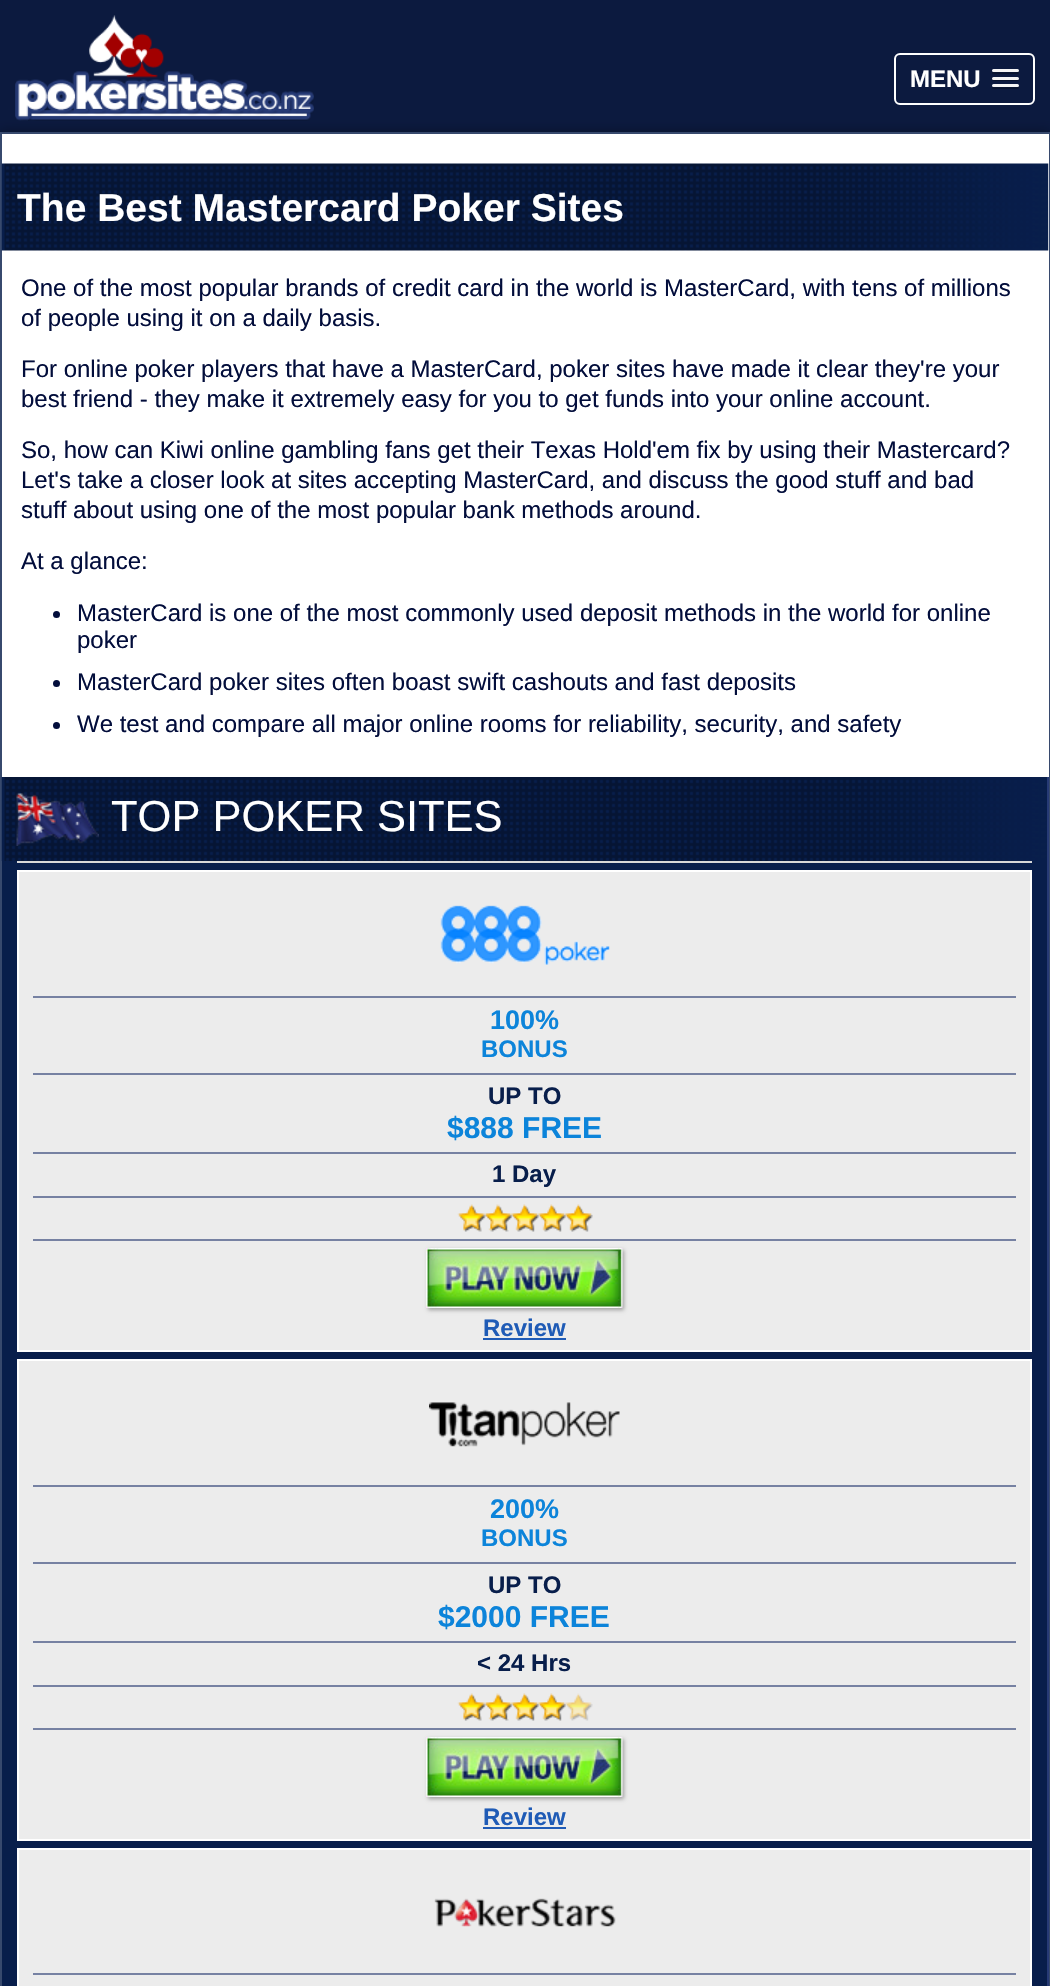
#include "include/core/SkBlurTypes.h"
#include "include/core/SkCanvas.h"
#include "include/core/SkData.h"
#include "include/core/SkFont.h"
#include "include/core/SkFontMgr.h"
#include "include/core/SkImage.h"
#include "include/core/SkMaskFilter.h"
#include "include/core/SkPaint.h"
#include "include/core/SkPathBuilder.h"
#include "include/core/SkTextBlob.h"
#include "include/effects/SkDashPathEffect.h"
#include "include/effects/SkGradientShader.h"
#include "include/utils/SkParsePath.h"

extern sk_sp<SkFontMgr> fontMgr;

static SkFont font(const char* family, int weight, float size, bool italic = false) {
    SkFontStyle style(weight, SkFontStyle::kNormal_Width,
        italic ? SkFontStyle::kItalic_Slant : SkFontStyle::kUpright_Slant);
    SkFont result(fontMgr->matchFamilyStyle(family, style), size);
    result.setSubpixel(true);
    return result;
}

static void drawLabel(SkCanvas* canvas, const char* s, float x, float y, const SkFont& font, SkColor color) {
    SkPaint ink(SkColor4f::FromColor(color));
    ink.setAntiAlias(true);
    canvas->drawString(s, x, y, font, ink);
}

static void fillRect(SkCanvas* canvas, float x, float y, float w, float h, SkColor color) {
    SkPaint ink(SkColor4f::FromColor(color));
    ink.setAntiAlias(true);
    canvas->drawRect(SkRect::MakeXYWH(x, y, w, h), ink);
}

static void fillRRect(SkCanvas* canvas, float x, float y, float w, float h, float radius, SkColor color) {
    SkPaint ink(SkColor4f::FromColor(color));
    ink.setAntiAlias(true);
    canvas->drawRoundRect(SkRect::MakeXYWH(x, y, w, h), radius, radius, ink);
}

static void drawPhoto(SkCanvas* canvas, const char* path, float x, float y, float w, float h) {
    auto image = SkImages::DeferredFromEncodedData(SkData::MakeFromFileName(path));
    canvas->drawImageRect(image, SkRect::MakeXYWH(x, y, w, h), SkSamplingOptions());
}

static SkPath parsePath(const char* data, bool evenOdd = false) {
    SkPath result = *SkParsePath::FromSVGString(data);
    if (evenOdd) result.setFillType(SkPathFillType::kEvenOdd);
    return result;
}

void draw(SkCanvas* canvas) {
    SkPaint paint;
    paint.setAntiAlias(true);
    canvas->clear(0xFF0C1A3F);
    drawPhoto(canvas, "assets/img1.png", 15, 15, 299, 106);
    paint.setColor(0x59000000);
    paint.setMaskFilter(SkMaskFilter::MakeBlur(kNormal_SkBlurStyle, 6));
    canvas->drawRect(SkRect::MakeXYWH(0, 132, 1050, 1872), paint);
    paint.setMaskFilter(nullptr);
    fillRect(canvas, 2, 134, 1047, 643, 0xFFFFFFFF);
    fillRect(canvas, 0, 132, 1050, 2, 0xFF37496D);
    fillRect(canvas, 1049, 132, 1, 1854, 0xFF37496D);
    fillRect(canvas, 0, 132, 2, 1854, 0xFF37496D);
    paint.setStroke(true);
    paint.setStrokeWidth(2);
    paint.setColor(0xFFFFFFFF);
    canvas->drawRoundRect(SkRect::MakeXYWH(895, 54, 139, 50), 5, 5, paint);
    SkFont font1 = font("Liberation Sans", 700, 24);
    drawLabel(canvas, "MENU", 910, 87, font1, 0xFFFFFFFF);
    paint.setStroke(false);
    paint.setColor(0xFF09142F);
    canvas->drawPath(parsePath("M992 72C990.5 75 997.5 74 997.5 74H1018C1019 73.5 1019.5 72 1018.5 71L1017 72C1015 72.5 993 72.5 992 72Z"), paint);
    fillRRect(canvas, 992, 69, 27, 3, 1.5f, 0xFFF5F5F5);
    canvas->drawPath(parsePath("M992 79C991.5 82 997 81 997.5 81H1017.5C1019 81 1019.5 79 1018.5 78.5L1017.5 79.5C1016 80 992.5 79.5 992 79Z"), paint);
    fillRRect(canvas, 992, 77, 27, 3, 1.5f, 0xFFF5F5F5);
    canvas->drawPath(parsePath("M992 87C990.5 90 997.5 89 997.5 89H1018C1019 88.5 1019.5 87 1018.5 86L1017 87C1015 87.5 993 87.5 992 87Z"), paint);
    fillRRect(canvas, 992, 84, 27, 3, 1.5f, 0xFFF5F5F5);
    drawPhoto(canvas, "assets/img2.png", 1, 163, 1048, 88);
    SkFont font2 = font("Liberation Sans", 700, 39);
    drawLabel(canvas, "The Best Mastercard Poker Sites", 17, 221, font2, 0xFFFFFFFF);
    SkFont font3 = font("Liberation Sans", 400, 24);
    drawLabel(canvas, "One of the most popular brands of credit card in the world is MasterCard, with tens of millions", 21, 296, font3, 0xFF020D3B);
    drawLabel(canvas, "of people using it on a daily basis.", 21, 326, font3, 0xFF020D3B);
    drawLabel(canvas, "For online poker players that have a MasterCard, poker sites have made it clear they're your", 21, 377, font3, 0xFF020D3B);
    drawLabel(canvas, "best friend - they make it extremely easy for you to get funds into your online account.", 21, 407, font3, 0xFF020D3B);
    drawLabel(canvas, "So, how can Kiwi online gambling fans get their Texas Hold'em fix by using their Mastercard?", 21, 458, font3, 0xFF020D3B);
    drawLabel(canvas, "Let's take a closer look at sites accepting MasterCard, and discuss the good stuff and bad", 21, 488, font3, 0xFF020D3B);
    drawLabel(canvas, "stuff about using one of the most popular bank methods around.", 21, 518, font3, 0xFF020D3B);
    drawLabel(canvas, "At a glance:", 21, 569, font3, 0xFF020D3B);
    paint.setColor(0xFF020D3B);
    canvas->drawCircle(56.5f, 614.5f, 3.5f, paint);
    drawLabel(canvas, "MasterCard is one of the most commonly used deposit methods in the world for online", 77, 621, font3, 0xFF020D3B);
    drawLabel(canvas, "poker", 77, 648, font3, 0xFF020D3B);
    canvas->drawCircle(56.5f, 683.5f, 3.5f, paint);
    drawLabel(canvas, "MasterCard poker sites often boast swift cashouts and fast deposits", 77, 690, font3, 0xFF020D3B);
    canvas->drawCircle(56.5f, 725.5f, 3.5f, paint);
    drawLabel(canvas, "We test and compare all major online rooms for reliability, security, and safety", 77, 732, font3, 0xFF020D3B);
    fillRect(canvas, 1047, 777, 2, 1209, 0xFF263A75);
    drawPhoto(canvas, "assets/img3.png", 1, 777, 1046, 84);
    drawPhoto(canvas, "assets/img4.png", 16, 793, 83, 53);
    SkFont font4 = font("Liberation Sans", 400, 43.5f);
    drawLabel(canvas, "TOP POKER SITES", 111, 831, font4, 0xFFFFFFFF);
    fillRect(canvas, 2, 861, 1045, 1125, 0xFF081E4B);
    fillRect(canvas, 17, 861, 1015, 2, 0xFFD8D8D8);
    paint.setColor(0xFFECECEC);
    canvas->drawRect(SkRect::MakeXYWH(18, 871, 1013, 480), paint);
    paint.setStroke(true);
    paint.setColor(0xFFFFFFFF);
    canvas->drawRect(SkRect::MakeXYWH(18, 871, 1013, 480), paint);
    drawPhoto(canvas, "assets/img5.png", 440, 905, 170, 60);
    fillRect(canvas, 33, 996, 983, 2, 0xFF7681A2);
    SkFont font5 = font("Liberation Sans", 700, 27);
    drawLabel(canvas, "100%", 490, 1029, font5, 0xFF0C84DA);
    drawLabel(canvas, "BONUS", 481, 1057, font1, 0xFF0C84DA);
    fillRect(canvas, 33, 1073, 983, 2, 0xFF7681A2);
    drawLabel(canvas, "UP TO", 488, 1104, font1, 0xFF081E4B);
    SkFont font6 = font("Liberation Sans", 700, 30);
    drawLabel(canvas, "$888 FREE", 447, 1138, font6, 0xFF0C84DA);
    fillRect(canvas, 33, 1152, 983, 2, 0xFF7681A2);
    drawLabel(canvas, "1 Day", 492, 1182, font1, 0xFF081E4B);
    fillRect(canvas, 33, 1196, 983, 2, 0xFF7681A2);
    drawPhoto(canvas, "assets/img6.png", 458, 1204, 135, 28);
    drawPhoto(canvas, "assets/img7.png", 457, 1204, 136, 28);
    fillRect(canvas, 33, 1239, 983, 2, 0xFF7681A2);
    paint.setStroke(false);
    paint.setColor(0x54000000);
    paint.setMaskFilter(SkMaskFilter::MakeBlur(kNormal_SkBlurStyle, 2));
    canvas->drawRect(SkRect::MakeXYWH(428, 1250, 196, 60), paint);
    paint.setMaskFilter(nullptr);
    drawPhoto(canvas, "assets/img8.png", 426, 1248, 197, 60);
    drawLabel(canvas, "Review", 483, 1336, font1, 0xFF1F5BB6);
    fillRect(canvas, 483, 1338, 83, 2, 0xFF1F5BB6);
    paint.setColor(0xFFECECEC);
    canvas->drawRect(SkRect::MakeXYWH(18, 1360, 1013, 480), paint);
    paint.setStroke(true);
    paint.setColor(0xFFFFFFFF);
    canvas->drawRect(SkRect::MakeXYWH(18, 1360, 1013, 480), paint);
    drawPhoto(canvas, "assets/img9.png", 429, 1402, 191, 45);
    fillRect(canvas, 33, 1485, 983, 2, 0xFF7681A2);
    drawLabel(canvas, "200%", 490, 1518, font5, 0xFF0C84DA);
    drawLabel(canvas, "BONUS", 481, 1546, font1, 0xFF0C84DA);
    fillRect(canvas, 33, 1562, 983, 2, 0xFF7681A2);
    drawLabel(canvas, "UP TO", 488, 1593, font1, 0xFF081E4B);
    drawLabel(canvas, "$2000 FREE", 438, 1627, font6, 0xFF0C84DA);
    fillRect(canvas, 33, 1641, 983, 2, 0xFF7681A2);
    drawLabel(canvas, "< 24 Hrs", 477, 1671, font1, 0xFF081E4B);
    fillRect(canvas, 33, 1685, 983, 2, 0xFF7681A2);
    drawPhoto(canvas, "assets/img6.png", 458, 1693, 135, 28);
    drawPhoto(canvas, "assets/img10.png", 457, 1693, 109, 28);
    fillRect(canvas, 33, 1728, 983, 2, 0xFF7681A2);
    paint.setStroke(false);
    paint.setColor(0x54000000);
    paint.setMaskFilter(SkMaskFilter::MakeBlur(kNormal_SkBlurStyle, 2));
    canvas->drawRect(SkRect::MakeXYWH(428, 1739, 196, 60), paint);
    paint.setMaskFilter(nullptr);
    drawPhoto(canvas, "assets/img8.png", 426, 1737, 197, 60);
    drawLabel(canvas, "Review", 483, 1825, font1, 0xFF1F5BB6);
    fillRect(canvas, 483, 1827, 83, 2, 0xFF1F5BB6);
    paint.setColor(0xFFECECEC);
    canvas->drawRect(SkRect::MakeXYWH(18, 1849, 1013, 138), paint);
    paint.setStroke(true);
    paint.setColor(0xFFFFFFFF);
    canvas->drawRect(SkRect::MakeXYWH(18, 1849, 1013, 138), paint);
    drawPhoto(canvas, "assets/img11.png", 434, 1898, 182, 29);
    fillRect(canvas, 33, 1973, 983, 2, 0xFF7681A2);
}
